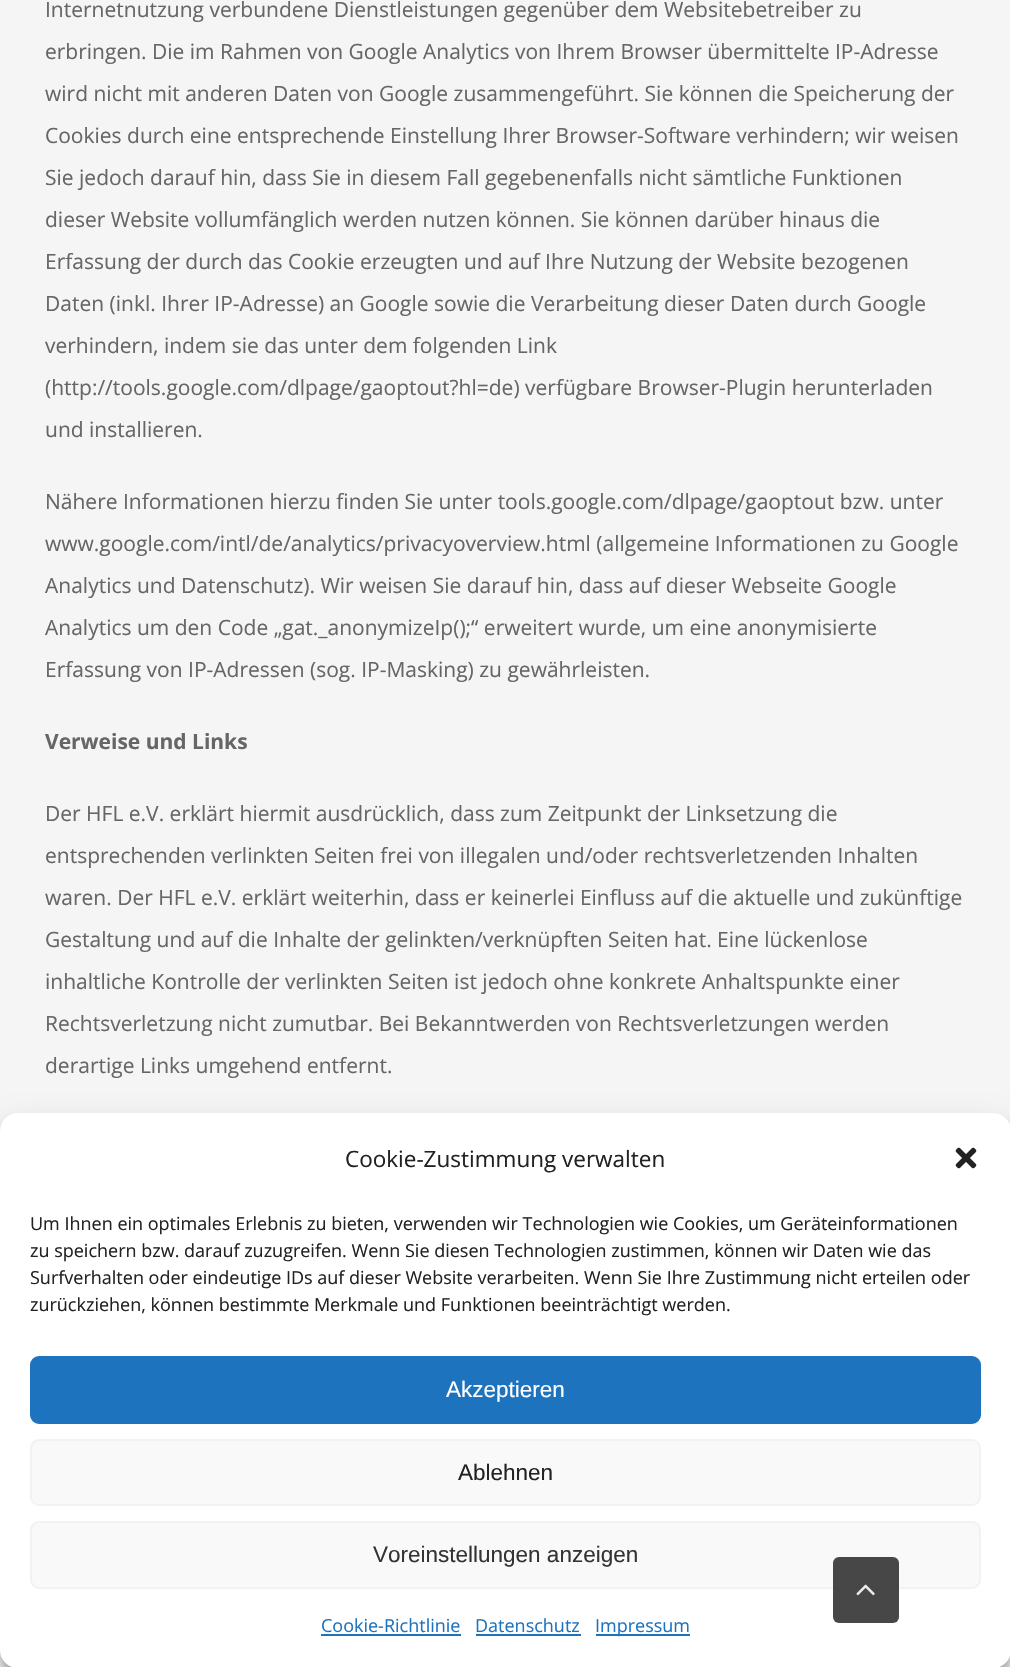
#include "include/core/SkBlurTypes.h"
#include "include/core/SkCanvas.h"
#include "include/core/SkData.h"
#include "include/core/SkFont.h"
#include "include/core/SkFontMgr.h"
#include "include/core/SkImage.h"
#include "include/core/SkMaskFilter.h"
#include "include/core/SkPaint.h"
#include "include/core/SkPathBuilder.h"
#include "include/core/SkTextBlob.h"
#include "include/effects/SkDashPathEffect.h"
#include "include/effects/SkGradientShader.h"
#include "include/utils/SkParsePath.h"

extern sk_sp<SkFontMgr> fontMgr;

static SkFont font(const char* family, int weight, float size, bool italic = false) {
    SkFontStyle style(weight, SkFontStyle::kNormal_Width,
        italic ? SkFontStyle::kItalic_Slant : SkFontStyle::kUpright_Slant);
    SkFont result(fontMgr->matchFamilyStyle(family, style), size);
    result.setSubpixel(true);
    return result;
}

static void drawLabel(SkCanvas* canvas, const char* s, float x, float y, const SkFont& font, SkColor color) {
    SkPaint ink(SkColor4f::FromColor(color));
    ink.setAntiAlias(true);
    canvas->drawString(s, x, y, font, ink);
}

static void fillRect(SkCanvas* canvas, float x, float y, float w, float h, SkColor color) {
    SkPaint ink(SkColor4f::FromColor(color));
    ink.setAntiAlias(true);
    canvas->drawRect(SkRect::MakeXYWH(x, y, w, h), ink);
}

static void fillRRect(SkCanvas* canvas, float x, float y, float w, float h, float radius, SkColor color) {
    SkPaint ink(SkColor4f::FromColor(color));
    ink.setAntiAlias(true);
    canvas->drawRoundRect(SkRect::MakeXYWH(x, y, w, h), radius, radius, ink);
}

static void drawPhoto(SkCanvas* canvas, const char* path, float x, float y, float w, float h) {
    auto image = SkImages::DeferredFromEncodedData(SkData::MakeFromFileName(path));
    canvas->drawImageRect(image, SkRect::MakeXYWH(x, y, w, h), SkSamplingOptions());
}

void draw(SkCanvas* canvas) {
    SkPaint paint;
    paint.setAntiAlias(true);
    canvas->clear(0xFFF5F5F5);
    SkFont font1 = font("Open Sans", 400, 21);
    drawLabel(canvas, "Internetnutzung verbundene Dienstleistungen gegenüber dem Websitebetreiber zu", 45, 17, font1, 0xFF666666);
    drawLabel(canvas, "erbringen. Die im Rahmen von Google Analytics von Ihrem Browser übermittelte IP-Adresse", 45, 59, font1, 0xFF666666);
    drawLabel(canvas, "wird nicht mit anderen Daten von Google zusammengeführt. Sie können die Speicherung der", 45, 101, font1, 0xFF666666);
    drawLabel(canvas, "Cookies durch eine entsprechende Einstellung Ihrer Browser-Software verhindern; wir weisen", 45, 143, font1, 0xFF666666);
    drawLabel(canvas, "Sie jedoch darauf hin, dass Sie in diesem Fall gegebenenfalls nicht sämtliche Funktionen", 45, 185, font1, 0xFF666666);
    drawLabel(canvas, "dieser Website vollumfänglich werden nutzen können. Sie können darüber hinaus die", 45, 227, font1, 0xFF666666);
    drawLabel(canvas, "Erfassung der durch das Cookie erzeugten und auf Ihre Nutzung der Website bezogenen", 45, 269, font1, 0xFF666666);
    drawLabel(canvas, "Daten (inkl. Ihrer IP-Adresse) an Google sowie die Verarbeitung dieser Daten durch Google", 45, 311, font1, 0xFF666666);
    drawLabel(canvas, "verhindern, indem sie das unter dem folgenden Link", 45, 353, font1, 0xFF666666);
    drawLabel(canvas, "(http://tools.google.com/dlpage/gaoptout?hl=de) verfügbare Browser-Plugin herunterladen", 45, 395, font1, 0xFF666666);
    drawLabel(canvas, "und installieren.", 45, 437, font1, 0xFF666666);
    drawLabel(canvas, "Nähere Informationen hierzu finden Sie unter tools.google.com/dlpage/gaoptout bzw. unter", 45, 509, font1, 0xFF666666);
    drawLabel(canvas, "www.google.com/intl/de/analytics/privacyoverview.html (allgemeine Informationen zu Google", 45, 551, font1, 0xFF666666);
    drawLabel(canvas, "Analytics und Datenschutz). Wir weisen Sie darauf hin, dass auf dieser Webseite Google", 45, 593, font1, 0xFF666666);
    drawLabel(canvas, "Analytics um den Code „gat._anonymizeIp();“ erweitert wurde, um eine anonymisierte", 45, 635, font1, 0xFF666666);
    drawLabel(canvas, "Erfassung von IP-Adressen (sog. IP-Masking) zu gewährleisten.", 45, 677, font1, 0xFF666666);
    SkFont font2 = font("Open Sans", 700, 21);
    drawLabel(canvas, "Verweise und Links", 45, 749, font2, 0xFF666666);
    drawLabel(canvas, "Der HFL e.V. erklärt hiermit ausdrücklich, dass zum Zeitpunkt der Linksetzung die", 45, 821, font1, 0xFF666666);
    drawLabel(canvas, "entsprechenden verlinkten Seiten frei von illegalen und/oder rechtsverletzenden Inhalten", 45, 863, font1, 0xFF666666);
    drawLabel(canvas, "waren. Der HFL e.V. erklärt weiterhin, dass er keinerlei Einfluss auf die aktuelle und zukünftige", 45, 905, font1, 0xFF666666);
    drawLabel(canvas, "Gestaltung und auf die Inhalte der gelinkten/verknüpften Seiten hat. Eine lückenlose", 45, 947, font1, 0xFF666666);
    drawLabel(canvas, "inhaltliche Kontrolle der verlinkten Seiten ist jedoch ohne konkrete Anhaltspunkte einer", 45, 989, font1, 0xFF666666);
    drawLabel(canvas, "Rechtsverletzung nicht zumutbar. Bei Bekanntwerden von Rechtsverletzungen werden", 45, 1031, font1, 0xFF666666);
    drawLabel(canvas, "derartige Links umgehend entfernt.", 45, 1073, font1, 0xFF666666);
    fillRect(canvas, 0, 1650, 1010, 17, 0xFFFFFFFF);
    paint.setColor(0x3B000000);
    paint.setMaskFilter(SkMaskFilter::MakeBlur(kNormal_SkBlurStyle, 4.5f));
    canvas->drawRoundRect(SkRect::MakeXYWH(0, 1122, 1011, 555), 18, 18, paint);
    paint.setMaskFilter(nullptr);
    paint.setColor(0x30000000);
    paint.setMaskFilter(SkMaskFilter::MakeBlur(kNormal_SkBlurStyle, 15));
    canvas->drawRoundRect(SkRect::MakeXYWH(0, 1128, 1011, 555), 18, 18, paint);
    paint.setMaskFilter(nullptr);
    fillRRect(canvas, 0, 1113, 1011, 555, 18, 0xFFFFFFFF);
    SkFont font3 = font("Open Sans", 400, 22.5f);
    drawLabel(canvas, "Cookie-Zustimmung verwalten", 345, 1167, font3, 0xFF222222);
    drawPhoto(canvas, "assets/img1.png", 955, 1147, 22, 22);
    SkFont font4 = font("Open Sans", 400, 18);
    drawLabel(canvas, "Um Ihnen ein optimales Erlebnis zu bieten, verwenden wir Technologien wie Cookies, um Geräteinformationen", 30, 1230, font4, 0xFF222222);
    drawLabel(canvas, "zu speichern bzw. darauf zuzugreifen. Wenn Sie diesen Technologien zustimmen, können wir Daten wie das", 30, 1257, font4, 0xFF222222);
    drawLabel(canvas, "Surfverhalten oder eindeutige IDs auf dieser Website verarbeiten. Wenn Sie Ihre Zustimmung nicht erteilen oder", 30, 1284, font4, 0xFF222222);
    drawLabel(canvas, "zurückziehen, können bestimmte Merkmale und Funktionen beeinträchtigt werden.", 30, 1311, font4, 0xFF222222);
    paint.setColor(0xFF1E73BE);
    canvas->drawRoundRect(SkRect::MakeXYWH(31, 1357, 949, 66), 8, 8, paint);
    paint.setStroke(true);
    paint.setStrokeWidth(2);
    canvas->drawRoundRect(SkRect::MakeXYWH(31, 1357, 949, 66), 8, 8, paint);
    SkFont font5 = font("Liberation Sans", 400, 22.5f);
    drawLabel(canvas, "Akzeptieren", 446, 1397, font5, 0xFFFFFFFF);
    paint.setStroke(false);
    paint.setColor(0xFFF9F9F9);
    canvas->drawRoundRect(SkRect::MakeXYWH(31, 1440, 949, 65), 8, 8, paint);
    paint.setStroke(true);
    paint.setColor(0xFFF2F2F2);
    canvas->drawRoundRect(SkRect::MakeXYWH(31, 1440, 949, 65), 8, 8, paint);
    drawLabel(canvas, "Ablehnen", 458, 1480, font5, 0xFF222222);
    paint.setStroke(false);
    paint.setColor(0xFFF9F9F9);
    canvas->drawRoundRect(SkRect::MakeXYWH(31, 1522, 949, 66), 8, 8, paint);
    paint.setStroke(true);
    paint.setColor(0xFFF2F2F2);
    canvas->drawRoundRect(SkRect::MakeXYWH(31, 1522, 949, 66), 8, 8, paint);
    drawLabel(canvas, "Voreinstellungen anzeigen", 373, 1562, font5, 0xFF333333);
    drawLabel(canvas, "Cookie-Richtlinie", 321, 1632, font4, 0xFF1E73BE);
    fillRect(canvas, 321, 1634, 140, 2, 0xFF1E73BE);
    drawLabel(canvas, "Datenschutz", 475, 1632, font4, 0xFF1E73BE);
    fillRect(canvas, 476, 1634, 105, 2, 0xFF1E73BE);
    fillRect(canvas, 596, 1634, 94, 2, 0xFF1E73BE);
    drawLabel(canvas, "Impressum", 595, 1632, font4, 0xFF1E73BE);
    fillRRect(canvas, 833, 1557, 66, 66, 6, 0xE6333333);
    drawPhoto(canvas, "assets/img2.png", 856, 1584, 19, 12);
}
